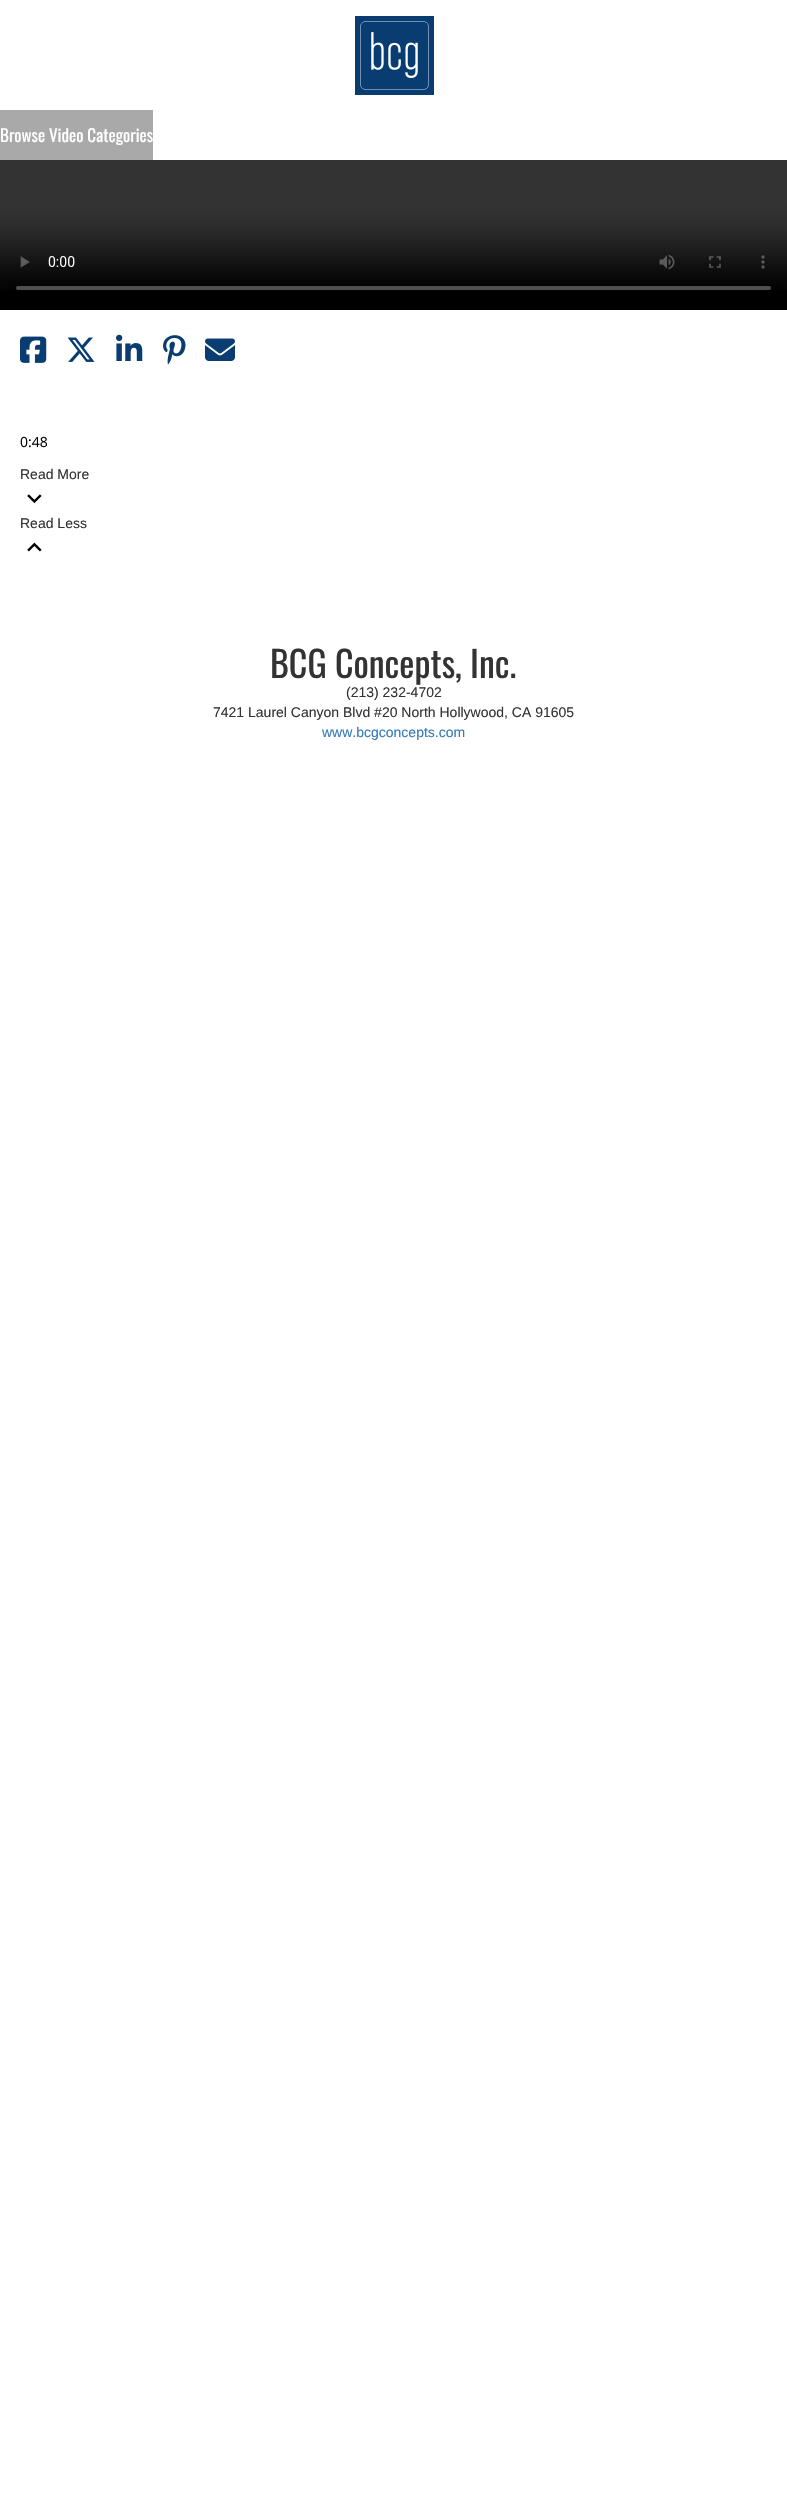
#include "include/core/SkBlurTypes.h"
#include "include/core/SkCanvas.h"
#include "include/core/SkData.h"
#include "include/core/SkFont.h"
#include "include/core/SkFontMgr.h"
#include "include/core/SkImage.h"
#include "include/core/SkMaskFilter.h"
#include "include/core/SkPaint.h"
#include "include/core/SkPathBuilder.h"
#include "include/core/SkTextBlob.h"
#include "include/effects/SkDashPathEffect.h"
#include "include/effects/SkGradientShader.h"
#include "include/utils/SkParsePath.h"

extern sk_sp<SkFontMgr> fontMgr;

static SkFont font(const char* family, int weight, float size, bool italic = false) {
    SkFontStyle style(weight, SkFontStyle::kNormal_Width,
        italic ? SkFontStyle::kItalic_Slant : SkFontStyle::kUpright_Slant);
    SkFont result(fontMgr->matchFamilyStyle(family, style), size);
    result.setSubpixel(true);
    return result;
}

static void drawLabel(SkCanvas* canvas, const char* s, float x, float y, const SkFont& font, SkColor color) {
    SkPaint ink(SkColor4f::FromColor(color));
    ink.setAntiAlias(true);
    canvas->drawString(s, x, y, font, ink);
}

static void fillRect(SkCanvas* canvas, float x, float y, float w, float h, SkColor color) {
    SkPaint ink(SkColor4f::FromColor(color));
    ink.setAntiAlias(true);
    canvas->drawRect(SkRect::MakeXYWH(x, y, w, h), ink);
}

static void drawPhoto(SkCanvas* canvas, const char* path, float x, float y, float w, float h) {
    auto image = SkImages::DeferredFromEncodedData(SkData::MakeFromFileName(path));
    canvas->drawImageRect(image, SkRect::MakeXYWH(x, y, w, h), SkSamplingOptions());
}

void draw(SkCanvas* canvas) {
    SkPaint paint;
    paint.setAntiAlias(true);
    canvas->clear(0xFFFFFFFF);
    drawPhoto(canvas, "assets/img1.png", 355, 16, 79, 79);
    fillRect(canvas, 0, 110, 153, 50, 0xFFA9A9A9);
    SkFont font1 = font("Oswald", 400, 17);
    drawLabel(canvas, "Browse Video Categories", 0, 142, font1, 0xFFFFFFFF);
    fillRect(canvas, 0, 290, 787, 20, 0xFF000000);
    drawPhoto(canvas, "assets/img2.png", 0, 160, 787, 130);
    drawPhoto(canvas, "assets/img3.png", 20, 336, 27, 27);
    drawPhoto(canvas, "assets/img4.png", 67, 337, 28, 25);
    drawPhoto(canvas, "assets/img5.png", 116, 334, 27, 27);
    drawPhoto(canvas, "assets/img6.png", 163, 335, 23, 30);
    drawPhoto(canvas, "assets/img7.png", 205, 338, 30, 23);
    SkFont font2 = font("Open Sans", 400, 14);
    drawLabel(canvas, "0:48", 20, 447, font2, 0xFF020202);
    SkFont font3 = font("Liberation Sans", 400, 14);
    drawLabel(canvas, "Read More", 20, 479, font3, 0xFF333333);
    drawPhoto(canvas, "assets/img8.png", 27, 494, 15, 10);
    drawLabel(canvas, "Read Less", 20, 528, font3, 0xFF333333);
    drawPhoto(canvas, "assets/img9.png", 27, 542, 15, 10);
    SkFont font4 = font("Oswald", 400, 36);
    drawLabel(canvas, "BCG Concepts, Inc.", 270, 678, font4, 0xFF333333);
    drawLabel(canvas, "(213) 232-4702", 346, 697, font3, 0xFF333333);
    drawLabel(canvas, "7421 Laurel Canyon Blvd #20 North Hollywood, CA 91605", 213, 717, font3, 0xFF333333);
    drawLabel(canvas, "www.bcgconcepts.com", 322, 737, font3, 0xFF337AB7);
}
